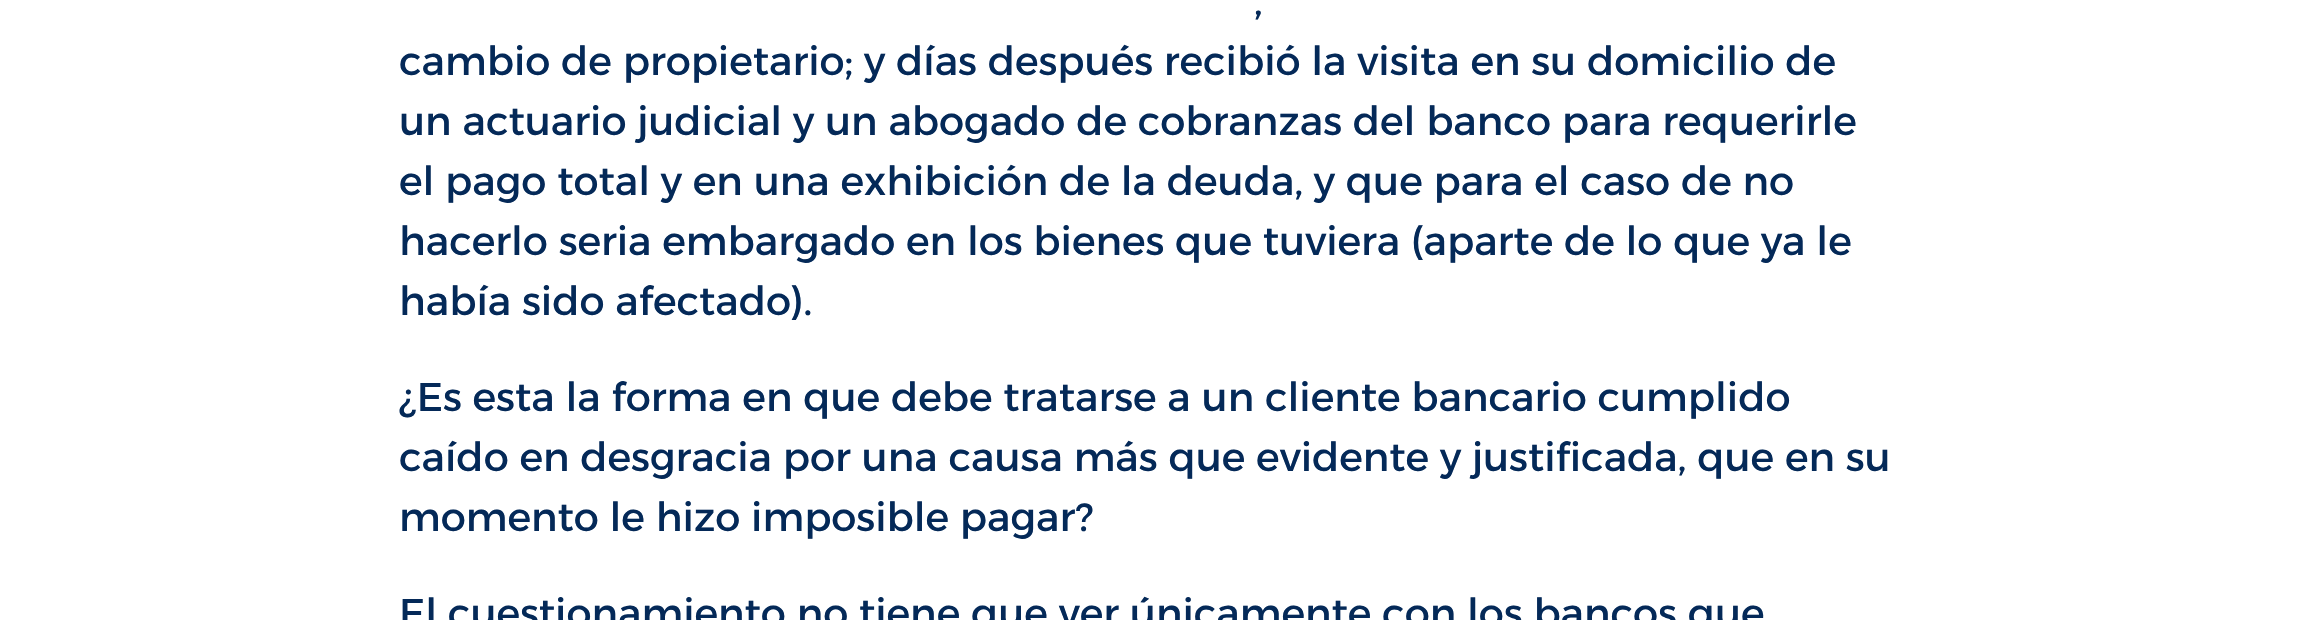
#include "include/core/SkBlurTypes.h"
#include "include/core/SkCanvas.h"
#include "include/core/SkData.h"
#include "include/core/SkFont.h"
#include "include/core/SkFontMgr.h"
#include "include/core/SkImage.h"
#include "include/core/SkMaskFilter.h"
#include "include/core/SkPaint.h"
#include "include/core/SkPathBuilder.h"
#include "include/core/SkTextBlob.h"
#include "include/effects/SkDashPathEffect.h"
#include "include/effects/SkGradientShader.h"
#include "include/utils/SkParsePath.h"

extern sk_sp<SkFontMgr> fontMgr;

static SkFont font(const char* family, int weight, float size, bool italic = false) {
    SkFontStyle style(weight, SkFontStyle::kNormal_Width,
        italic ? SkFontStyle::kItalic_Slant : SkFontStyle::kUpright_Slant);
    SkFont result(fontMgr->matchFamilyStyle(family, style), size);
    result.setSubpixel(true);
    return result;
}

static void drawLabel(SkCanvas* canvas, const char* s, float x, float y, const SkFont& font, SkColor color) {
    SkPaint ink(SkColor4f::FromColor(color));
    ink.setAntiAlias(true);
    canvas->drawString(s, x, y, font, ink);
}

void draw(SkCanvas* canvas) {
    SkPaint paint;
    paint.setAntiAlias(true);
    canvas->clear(0xFFFFFFFF);
    SkFont font1 = font("Alexandria", 400, 40);
    drawLabel(canvas, ",", 1254, 15, font1, 0xFF042958);
    drawLabel(canvas, "cambio de propietario; y días después recibió la visita en su domicilio de", 399, 75, font1, 0xFF042958);
    drawLabel(canvas, "un actuario judicial y un abogado de cobranzas del banco para requerirle", 399, 135, font1, 0xFF042958);
    drawLabel(canvas, "el pago total y en una exhibición de la deuda, y que para el caso de no", 399, 195, font1, 0xFF042958);
    drawLabel(canvas, "hacerlo seria embargado en los bienes que tuviera (aparte de lo que ya le", 399, 255, font1, 0xFF042958);
    drawLabel(canvas, "había sido afectado).", 399, 315, font1, 0xFF042958);
    drawLabel(canvas, "¿Es esta la forma en que debe tratarse a un cliente bancario cumplido", 399, 411, font1, 0xFF042958);
    drawLabel(canvas, "caído en desgracia por una causa más que evidente y justificada, que en su", 399, 471, font1, 0xFF042958);
    drawLabel(canvas, "momento le hizo imposible pagar?", 399, 531, font1, 0xFF042958);
    drawLabel(canvas, "El cuestionamiento no tiene que ver únicamente con los bancos que", 399, 627, font1, 0xFF042958);
}
